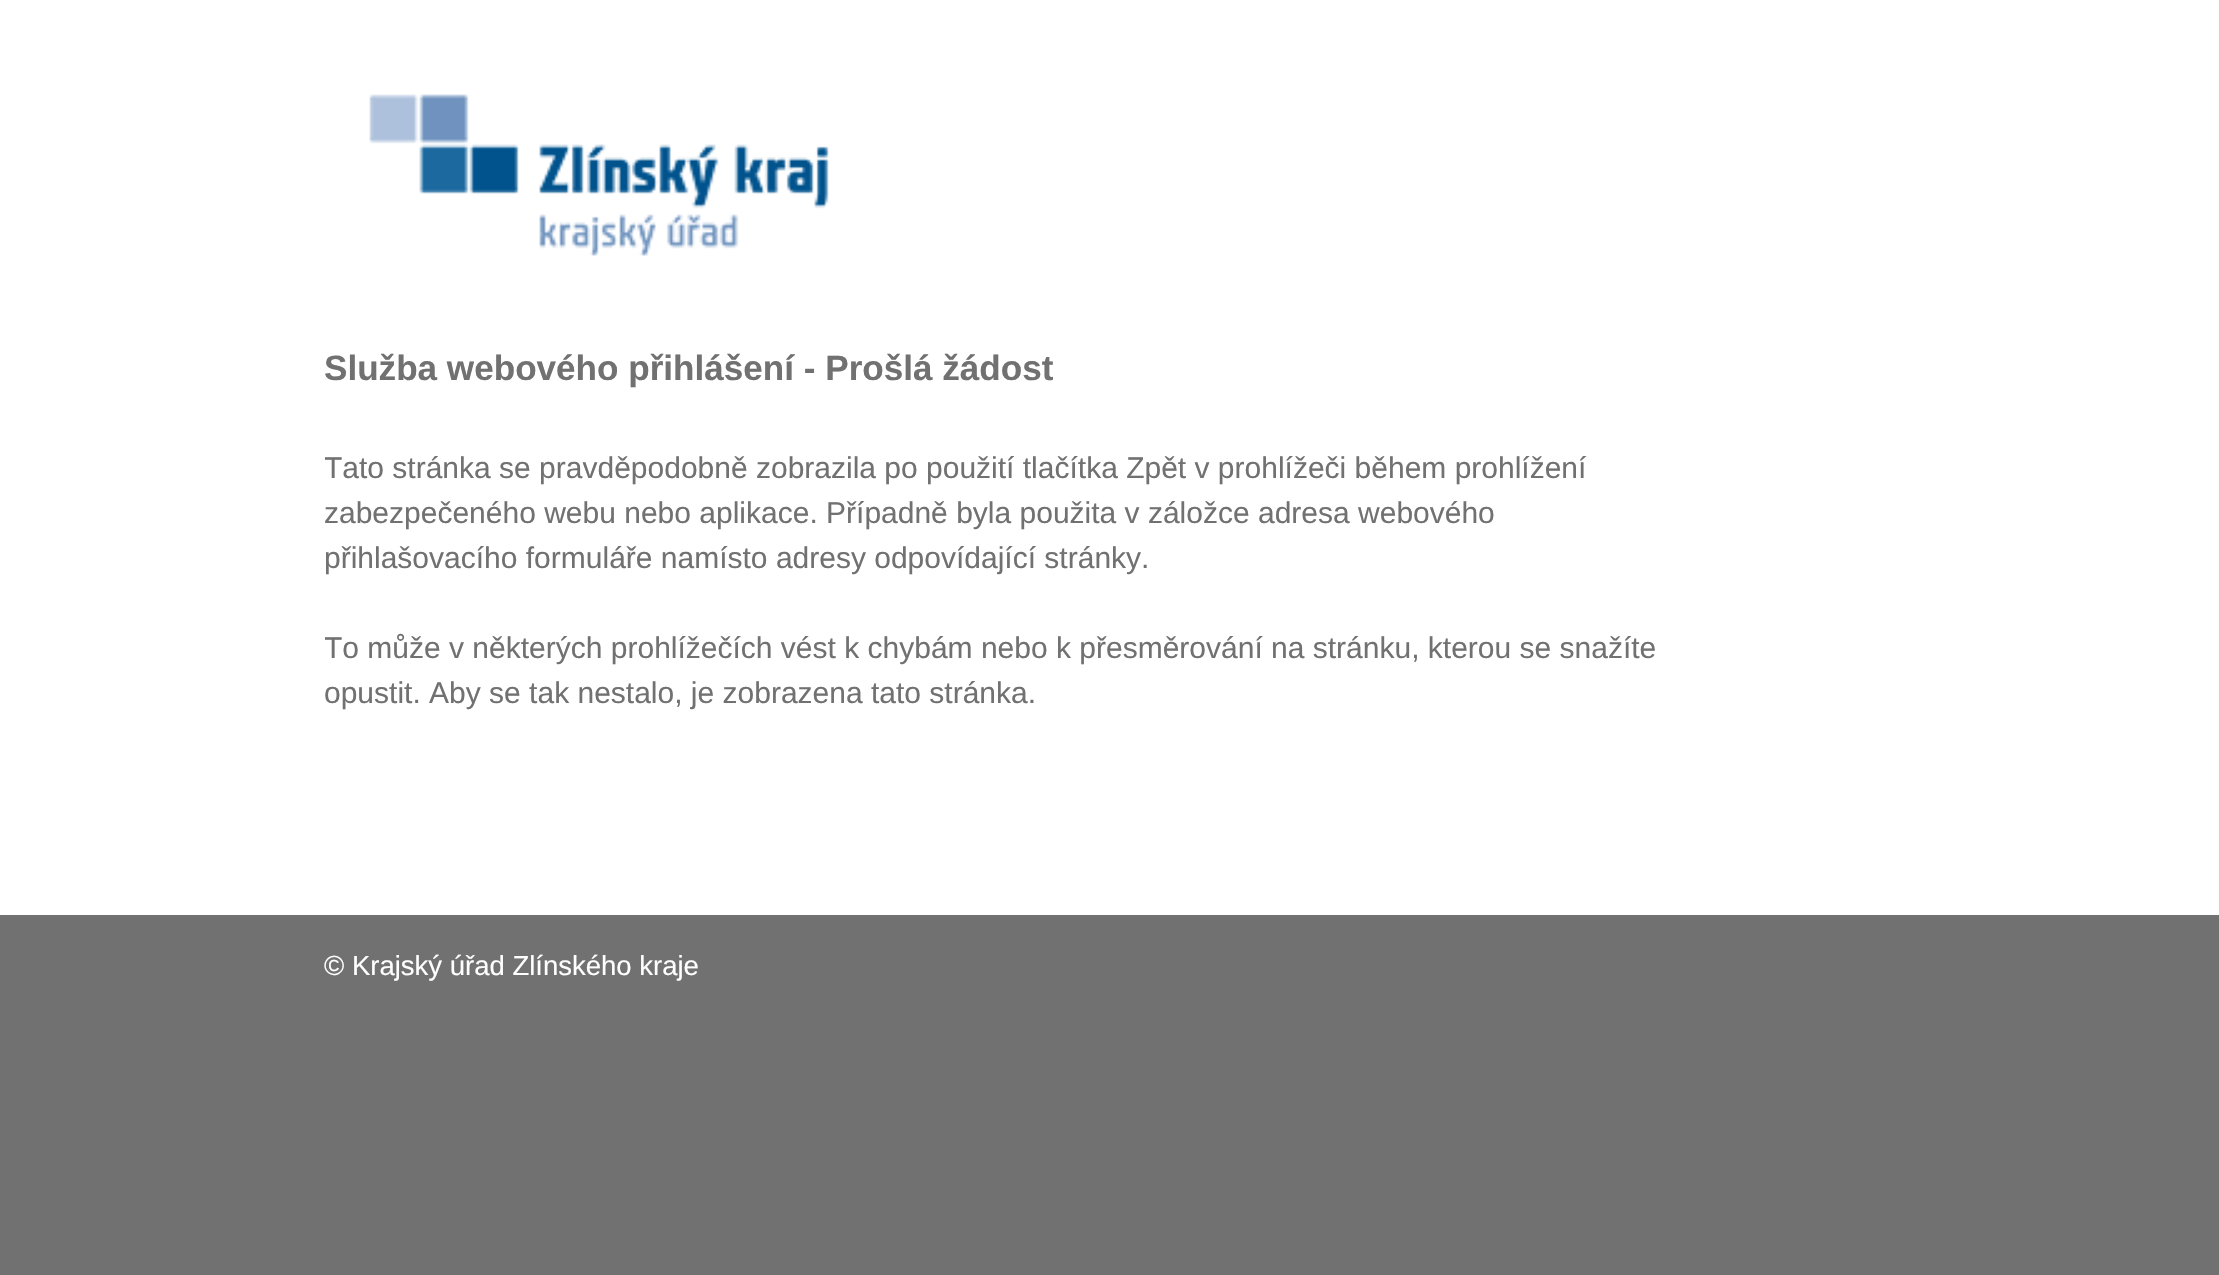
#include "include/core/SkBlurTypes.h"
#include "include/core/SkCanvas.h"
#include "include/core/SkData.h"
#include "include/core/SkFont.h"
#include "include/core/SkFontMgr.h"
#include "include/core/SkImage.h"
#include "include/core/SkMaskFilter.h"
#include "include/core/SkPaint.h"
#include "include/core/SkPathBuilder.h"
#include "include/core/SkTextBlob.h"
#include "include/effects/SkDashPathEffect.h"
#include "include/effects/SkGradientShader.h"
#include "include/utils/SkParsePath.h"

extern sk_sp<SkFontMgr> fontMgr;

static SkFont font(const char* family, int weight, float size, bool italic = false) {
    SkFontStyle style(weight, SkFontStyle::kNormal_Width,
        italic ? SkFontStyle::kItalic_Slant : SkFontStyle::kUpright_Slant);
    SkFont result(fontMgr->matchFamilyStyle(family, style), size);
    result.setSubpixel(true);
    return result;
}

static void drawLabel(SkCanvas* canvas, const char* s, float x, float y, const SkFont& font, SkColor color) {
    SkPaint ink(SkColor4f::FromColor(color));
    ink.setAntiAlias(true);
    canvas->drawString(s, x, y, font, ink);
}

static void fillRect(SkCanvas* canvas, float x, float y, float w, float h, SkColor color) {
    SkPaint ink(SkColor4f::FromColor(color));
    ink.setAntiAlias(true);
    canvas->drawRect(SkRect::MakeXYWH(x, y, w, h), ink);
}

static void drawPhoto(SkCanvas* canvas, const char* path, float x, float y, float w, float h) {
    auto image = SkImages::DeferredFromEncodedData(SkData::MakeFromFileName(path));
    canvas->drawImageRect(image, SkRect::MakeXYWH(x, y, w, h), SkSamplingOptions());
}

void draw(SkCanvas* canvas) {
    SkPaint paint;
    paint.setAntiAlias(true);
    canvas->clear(0xFF717171);
    fillRect(canvas, 0, 0, 2219, 915, 0xFFFFFFFF);
    drawPhoto(canvas, "assets/img1.png", 369, 94, 460, 162);
    SkFont font1 = font("Liberation Sans", 700, 35.1f);
    drawLabel(canvas, "Služba webového přihlášení - Prošlá žádost", 324, 380, font1, 0xFF717171);
    canvas->save();
    canvas->clipRect(SkRect::MakeXYWH(325, 445, 1350, 470));
    SkFont font2 = font("Liberation Sans", 400, 30);
    drawLabel(canvas, "Tato stránka se pravděpodobně zobrazila po použití tlačítka Zpět v prohlížeči během prohlížení", 324, 478, font2, 0xFF717171);
    canvas->restore();
    drawLabel(canvas, "zabezpečeného webu nebo aplikace. Případně byla použita v záložce adresa webového", 324, 523, font2, 0xFF717171);
    drawLabel(canvas, "přihlašovacího formuláře namísto adresy odpovídající stránky.", 324, 568, font2, 0xFF717171);
    canvas->save();
    canvas->clipRect(SkRect::MakeXYWH(325, 445, 1350, 470));
    drawLabel(canvas, "To může v některých prohlížečích vést k chybám nebo k přesměrování na stránku, kterou se snažíte", 324, 658, font2, 0xFF717171);
    canvas->restore();
    drawLabel(canvas, "opustit. Aby se tak nestalo, je zobrazena tato stránka.", 324, 703, font2, 0xFF717171);
    SkFont font3 = font("Liberation Sans", 400, 27.5f);
    drawLabel(canvas, "© Krajský úřad Zlínského kraje", 324, 975, font3, 0xFFFFFFFF);
}
